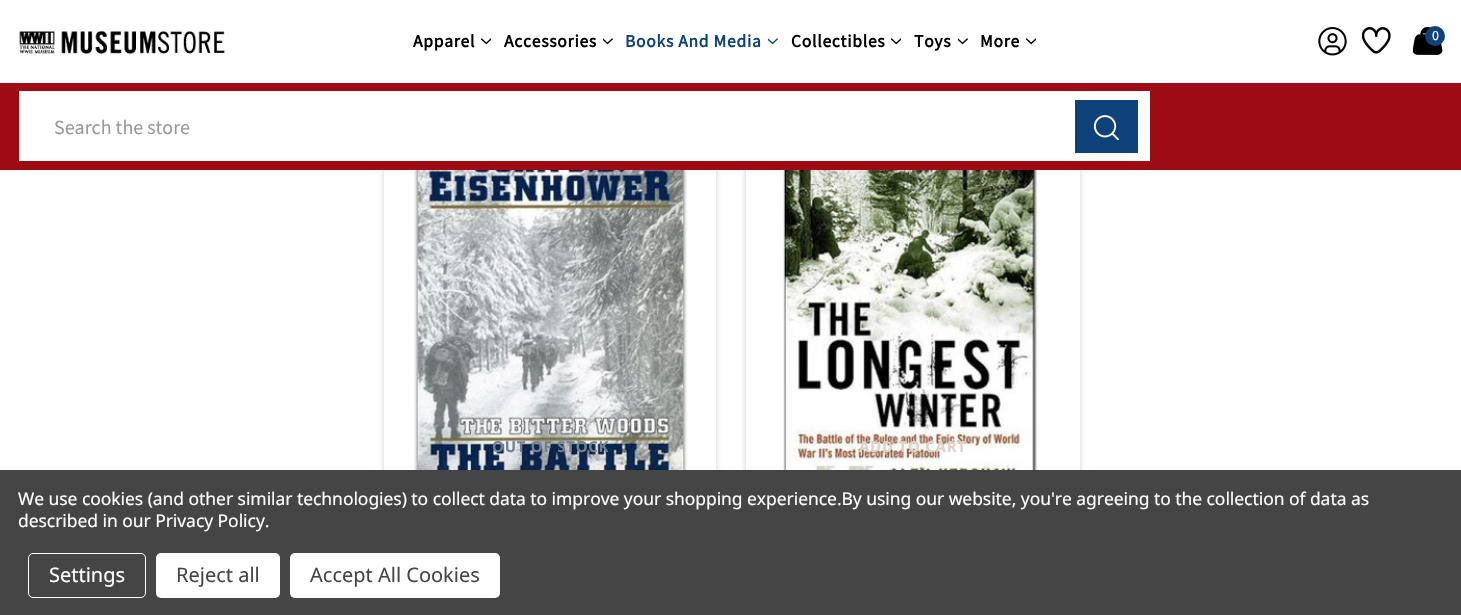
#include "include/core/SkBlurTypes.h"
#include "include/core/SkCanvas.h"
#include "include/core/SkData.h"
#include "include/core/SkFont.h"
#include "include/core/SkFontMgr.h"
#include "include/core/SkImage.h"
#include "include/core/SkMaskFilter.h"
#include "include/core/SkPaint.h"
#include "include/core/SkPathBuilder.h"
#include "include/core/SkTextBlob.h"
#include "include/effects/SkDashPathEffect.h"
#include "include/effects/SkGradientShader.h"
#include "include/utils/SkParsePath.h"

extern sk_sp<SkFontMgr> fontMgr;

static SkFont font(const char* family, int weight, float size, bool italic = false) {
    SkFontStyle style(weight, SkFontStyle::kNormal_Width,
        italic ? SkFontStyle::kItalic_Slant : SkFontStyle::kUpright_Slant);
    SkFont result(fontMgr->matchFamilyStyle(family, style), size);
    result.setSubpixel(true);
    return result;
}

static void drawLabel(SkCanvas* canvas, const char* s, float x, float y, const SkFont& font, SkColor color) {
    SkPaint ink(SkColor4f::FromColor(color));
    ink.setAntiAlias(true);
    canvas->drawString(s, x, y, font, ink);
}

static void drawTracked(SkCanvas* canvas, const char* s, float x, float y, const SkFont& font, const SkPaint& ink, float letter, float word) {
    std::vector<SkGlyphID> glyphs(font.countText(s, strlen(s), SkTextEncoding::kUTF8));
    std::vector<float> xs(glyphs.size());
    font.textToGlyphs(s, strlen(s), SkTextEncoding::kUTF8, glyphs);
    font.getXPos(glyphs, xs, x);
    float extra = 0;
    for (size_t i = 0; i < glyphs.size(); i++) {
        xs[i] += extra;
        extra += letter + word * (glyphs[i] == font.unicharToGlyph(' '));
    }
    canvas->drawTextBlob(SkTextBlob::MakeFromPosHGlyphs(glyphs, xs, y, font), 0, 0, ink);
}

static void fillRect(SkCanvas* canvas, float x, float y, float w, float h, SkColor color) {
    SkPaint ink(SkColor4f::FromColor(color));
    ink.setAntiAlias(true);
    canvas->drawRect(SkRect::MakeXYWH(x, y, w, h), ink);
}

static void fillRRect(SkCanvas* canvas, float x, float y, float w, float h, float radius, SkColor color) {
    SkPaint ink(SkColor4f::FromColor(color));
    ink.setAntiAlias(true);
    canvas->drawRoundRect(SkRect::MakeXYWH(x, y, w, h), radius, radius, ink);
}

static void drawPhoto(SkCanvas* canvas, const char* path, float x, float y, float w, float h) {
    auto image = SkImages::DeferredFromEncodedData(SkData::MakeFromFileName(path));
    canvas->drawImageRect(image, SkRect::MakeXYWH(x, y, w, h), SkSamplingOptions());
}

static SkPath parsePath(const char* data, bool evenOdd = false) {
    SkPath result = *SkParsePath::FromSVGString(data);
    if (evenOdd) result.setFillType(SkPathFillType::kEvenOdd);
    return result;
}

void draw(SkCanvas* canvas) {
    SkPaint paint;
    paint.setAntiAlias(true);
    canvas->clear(0xFFFFFFFF);
    drawPhoto(canvas, "assets/img1.png", 19, 31, 206, 23);
    SkFont font1 = font("Source Sans Pro", 700, 17.5f);
    paint.setColor(0xFF000000);
    drawTracked(canvas, "Apparel", 413, 47, font1, paint, 0.75f, 0);
    drawPhoto(canvas, "assets/img2.png", 481, 38, 10, 7);
    drawTracked(canvas, "Accessories", 504, 47, font1, paint, 0.75f, 0);
    drawPhoto(canvas, "assets/img3.png", 603, 38, 10, 7);
    paint.setColor(0xFF0F417A);
    drawTracked(canvas, "Books And Media", 625, 47, font1, paint, 0.75f, 0);
    drawPhoto(canvas, "assets/img4.png", 768, 38, 10, 7);
    paint.setColor(0xFF000000);
    drawTracked(canvas, "Collectibles", 791, 47, font1, paint, 0.75f, 0);
    drawPhoto(canvas, "assets/img2.png", 891, 38, 10, 7);
    drawTracked(canvas, "Toys", 914, 47, font1, paint, 0.75f, 0);
    drawPhoto(canvas, "assets/img3.png", 958, 38, 10, 7);
    drawTracked(canvas, "More", 980, 47, font1, paint, 0.75f, 0);
    drawPhoto(canvas, "assets/img2.png", 1026, 38, 10, 7);
    drawPhoto(canvas, "assets/img5.png", 1318, 27, 29, 29);
    drawPhoto(canvas, "assets/img6.png", 1362, 27, 29, 27);
    drawPhoto(canvas, "assets/img7.png", 1413, 26, 30, 29);
    paint.setColor(0xFF0F417A);
    canvas->drawCircle(1435, 36, 10, paint);
    SkFont font2 = font("Source Sans Pro", 400, 14);
    drawLabel(canvas, "0", 1432, 40, font2, 0xFFFFFFFF);
    canvas->save();
    canvas->clipPath(parsePath("M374 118H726V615H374ZM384 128H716V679H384Z", true), true);
    paint.setColor(0x2E000000);
    paint.setMaskFilter(SkMaskFilter::MakeBlur(kNormal_SkBlurStyle, 3));
    canvas->drawRect(SkRect::MakeXYWH(384, 128, 332, 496), paint);
    paint.setMaskFilter(nullptr);
    canvas->restore();
    paint.setMaskFilter(SkMaskFilter::MakeBlur(kNormal_SkBlurStyle, 3));
    canvas->drawRect(SkRect::MakeXYWH(746, 128, 334, 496), paint);
    paint.setMaskFilter(nullptr);
    fillRect(canvas, 0, 83, 1461, 87, 0xFF9F0B15);
    fillRect(canvas, 19, 91, 1131, 70, 0xFFFFFFFF);
    SkFont font3 = font("Source Sans Pro", 400, 20);
    drawLabel(canvas, "Search the store", 54, 134, font3, 0xFF999999);
    fillRect(canvas, 1075, 100, 63, 53, 0xFF0F417A);
    drawPhoto(canvas, "assets/img8.png", 1094, 115, 25, 25);
    drawPhoto(canvas, "assets/img9.png", 414, 170, 274, 300);
    SkFont font4 = font("Open Sans", 700, 15);
    paint.setColor(0xFF728090);
    drawTracked(canvas, "OUT OF STOCK", 492, 452, font4, paint, 0.75f, 0);
    fillRect(canvas, 746, 170, 334, 300, 0xFFFFFFFF);
    drawPhoto(canvas, "assets/img10.png", 779, 170, 259, 300);
    paint.setColor(0xFFDED4CC);
    drawTracked(canvas, "ADD TO CART", 859, 452, font4, paint, 0.75f, 0);
    fillRect(canvas, 0, 470, 1461, 145, 0xFF454545);
    SkFont font5 = font("Noto Sans", 400, 17.5f);
    paint.setColor(0xFFFFFFFF);
    drawTracked(canvas, "We use cookies (and other similar technologies) to collect data to improve your shopping experience.By using our website, you're agreeing to the collection of data as", 18, 505, font5, paint, -0.06f, 0);
    drawTracked(canvas, "described in our Privacy Policy.", 18, 527, font5, paint, -0.06f, 0);
    paint.setStroke(true);
    paint.setStrokeWidth(1);
    canvas->drawRoundRect(SkRect::MakeXYWH(28.5f, 553.5f, 117, 44), 4.5f, 4.5f, paint);
    SkFont font6 = font("Noto Sans", 400, 20);
    drawLabel(canvas, "Settings", 49, 582, font6, 0xFFFFFFFF);
    fillRRect(canvas, 156, 553, 124, 45, 5, 0xFFFFFFFF);
    drawLabel(canvas, "Reject all", 176, 582, font6, 0xFF454545);
    fillRRect(canvas, 290, 553, 210, 45, 5, 0xFFFFFFFF);
    drawLabel(canvas, "Accept All Cookies", 310, 582, font6, 0xFF454545);
}
